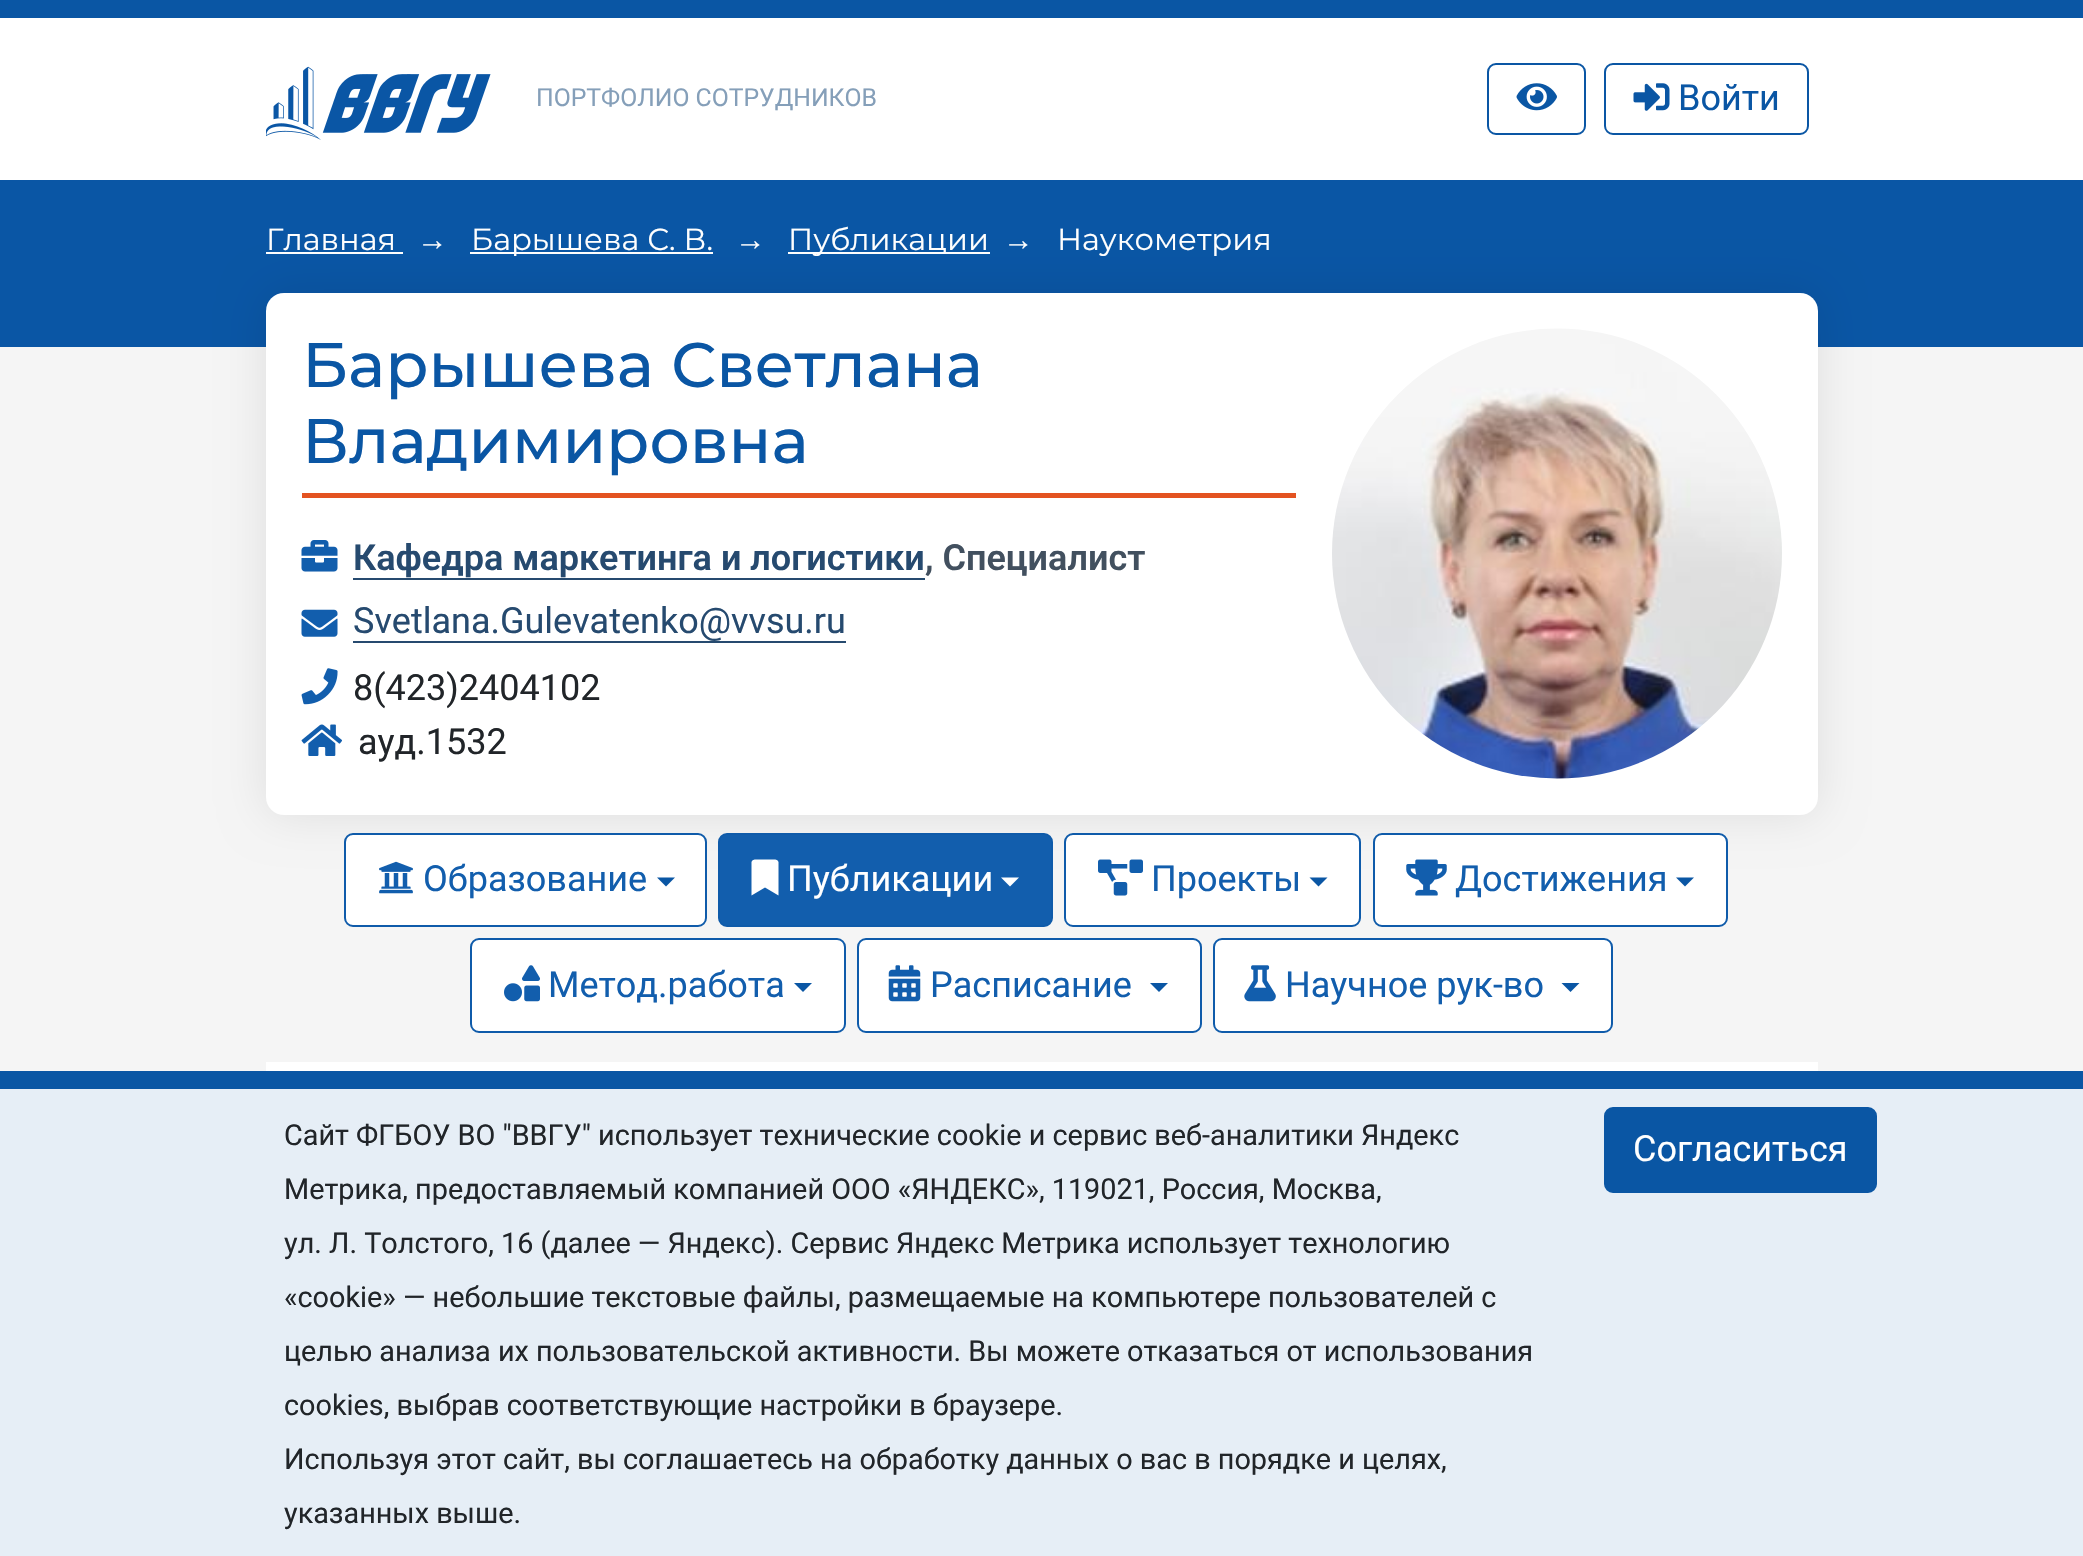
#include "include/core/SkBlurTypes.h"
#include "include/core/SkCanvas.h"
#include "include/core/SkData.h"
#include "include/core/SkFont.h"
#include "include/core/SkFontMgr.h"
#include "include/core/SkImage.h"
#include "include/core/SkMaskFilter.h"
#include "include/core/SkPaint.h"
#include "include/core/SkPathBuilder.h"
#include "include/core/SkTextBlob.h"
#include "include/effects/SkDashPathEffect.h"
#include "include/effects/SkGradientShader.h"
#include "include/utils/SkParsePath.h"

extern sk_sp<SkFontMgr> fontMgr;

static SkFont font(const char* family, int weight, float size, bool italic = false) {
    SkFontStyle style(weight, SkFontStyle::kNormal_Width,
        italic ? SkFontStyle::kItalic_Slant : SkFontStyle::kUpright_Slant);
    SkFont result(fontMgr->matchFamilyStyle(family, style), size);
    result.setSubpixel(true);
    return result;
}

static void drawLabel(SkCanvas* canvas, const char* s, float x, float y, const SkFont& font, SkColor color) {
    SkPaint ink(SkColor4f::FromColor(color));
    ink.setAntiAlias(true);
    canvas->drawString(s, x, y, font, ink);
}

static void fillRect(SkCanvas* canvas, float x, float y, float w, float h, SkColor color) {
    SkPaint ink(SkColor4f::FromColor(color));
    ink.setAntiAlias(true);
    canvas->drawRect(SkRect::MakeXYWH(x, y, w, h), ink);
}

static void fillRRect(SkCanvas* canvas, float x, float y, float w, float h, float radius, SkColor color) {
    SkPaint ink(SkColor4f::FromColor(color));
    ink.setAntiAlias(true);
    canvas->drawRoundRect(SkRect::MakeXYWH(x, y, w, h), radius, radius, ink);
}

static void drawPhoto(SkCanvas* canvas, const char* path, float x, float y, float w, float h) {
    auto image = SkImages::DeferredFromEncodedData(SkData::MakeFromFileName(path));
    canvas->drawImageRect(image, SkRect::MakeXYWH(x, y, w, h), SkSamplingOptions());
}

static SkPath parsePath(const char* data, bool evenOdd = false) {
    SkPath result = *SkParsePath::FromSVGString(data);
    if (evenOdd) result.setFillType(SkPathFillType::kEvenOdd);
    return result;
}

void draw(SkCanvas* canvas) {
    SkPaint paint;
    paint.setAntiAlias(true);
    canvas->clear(0xFFF5F5F5);
    fillRect(canvas, 0, 0, 2083, 18, 0xFF0A56A4);
    fillRect(canvas, 0, 18, 2083, 162, 0xFFFFFFFF);
    drawPhoto(canvas, "assets/img1.png", 266, 66, 225, 74);
    SkFont font1 = font("Roboto", 400, 24.75f);
    drawLabel(canvas, "ПОРТФОЛИО СОТРУДНИКОВ", 536, 106, font1, 0xFF859FB9);
    paint.setStroke(true);
    paint.setStrokeWidth(2);
    paint.setColor(0xFF0A56A4);
    canvas->drawRoundRect(SkRect::MakeXYWH(1488, 64, 97, 70), 8, 8, paint);
    drawPhoto(canvas, "assets/img2.png", 1516, 83, 41, 28);
    canvas->drawRoundRect(SkRect::MakeXYWH(1605, 64, 203, 70), 8, 8, paint);
    drawPhoto(canvas, "assets/img3.png", 1633, 83, 37, 28);
    SkFont font2 = font("Roboto", 400, 36);
    drawLabel(canvas, "Войти", 1678, 110, font2, 0xFF0A56A4);
    fillRect(canvas, 0, 180, 2083, 167, 0xFF0A56A5);
    SkFont font3 = font("Montserrat", 400, 30.5f);
    drawLabel(canvas, "Главная", 266, 250, font3, 0xFFFFFFFF);
    fillRect(canvas, 266, 252, 137, 2, 0xFFFFFFFF);
    SkFont font4 = font("Liberation Sans", 400, 30.5f);
    drawLabel(canvas, "→", 417, 250, font4, 0xFFFFFFFF);
    fillRect(canvas, 470, 252, 243, 2, 0xFFFFFFFF);
    drawLabel(canvas, "Барышева С. В.", 471, 250, font3, 0xFFFFFFFF);
    drawLabel(canvas, "→", 735, 250, font4, 0xFFFFFFFF);
    fillRect(canvas, 788, 252, 202, 2, 0xFFFFFFFF);
    drawLabel(canvas, "Публикации", 788, 250, font3, 0xFFFFFFFF);
    drawLabel(canvas, "→", 1003, 250, font4, 0xFFFFFFFF);
    drawLabel(canvas, "Наукометрия", 1057, 250, font3, 0xFFFFFFFF);
    paint.setStroke(false);
    paint.setColor(0x17000000);
    paint.setMaskFilter(SkMaskFilter::MakeBlur(kNormal_SkBlurStyle, 22.5f));
    canvas->drawRoundRect(SkRect::MakeXYWH(266, 293, 1552, 522), 18, 18, paint);
    paint.setMaskFilter(nullptr);
    fillRRect(canvas, 266, 293, 1552, 522, 18, 0xFFFFFFFF);
    SkFont font5 = font("Montserrat", 500, 63);
    drawLabel(canvas, "Барышева Светлана", 302, 387, font5, 0xFF0A56A4);
    drawLabel(canvas, "Владимировна", 302, 463, font5, 0xFF0A56A4);
    fillRect(canvas, 302, 493, 994, 5, 0xFFE35321);
    drawPhoto(canvas, "assets/img4.png", 301, 540, 37, 32);
    SkFont font6 = font("Roboto", 600, 36);
    drawLabel(canvas, "Кафедра маркетинга и логистики", 353, 570, font6, 0xFF264A6F);
    fillRect(canvas, 353, 578, 572, 2, 0xFF264A6F);
    drawLabel(canvas, ", Специалист", 925, 570, font6, 0xFF42505F);
    drawPhoto(canvas, "assets/img5.png", 301, 609, 37, 28);
    drawLabel(canvas, "Svetlana.Gulevatenko@vvsu.ru", 353, 633, font2, 0xFF264A6F);
    fillRect(canvas, 353, 641, 493, 2, 0xFF264A6F);
    drawPhoto(canvas, "assets/img6.png", 301, 668, 37, 37);
    drawLabel(canvas, "8(423)2404102", 353, 700, font2, 0xFF212529);
    drawPhoto(canvas, "assets/img7.png", 301, 724, 41, 32);
    drawLabel(canvas, "ауд.1532", 358, 754, font2, 0xFF212529);
    drawPhoto(canvas, "assets/img8.png", 1332, 328, 450, 451);
    paint.setColor(0xFFFFFFFF);
    canvas->drawRoundRect(SkRect::MakeXYWH(345, 834, 361, 92), 8, 8, paint);
    paint.setStroke(true);
    paint.setColor(0xFF0F5BAA);
    canvas->drawRoundRect(SkRect::MakeXYWH(345, 834, 361, 92), 8, 8, paint);
    drawPhoto(canvas, "assets/img9.png", 379, 861, 34, 33);
    drawLabel(canvas, "Образование", 423, 891, font2, 0xFF125EAD);
    paint.setStroke(false);
    paint.setColor(0xFF0A56A4);
    canvas->drawPath(parsePath("M657 877.5H675L666 886.5Z"), paint);
    paint.setColor(0xFF125EAD);
    canvas->drawRoundRect(SkRect::MakeXYWH(719, 834, 333, 92), 8, 8, paint);
    paint.setStroke(true);
    paint.setColor(0xFF0F5BAA);
    canvas->drawRoundRect(SkRect::MakeXYWH(719, 834, 333, 92), 8, 8, paint);
    paint.setStroke(false);
    paint.setColor(0xFFFFFFFF);
    canvas->drawPath(parsePath("M751.5 895.5V862C752 859 756 859.5 758 859.5H772C774 859.5 778 859 778.5 862V895.5L765 887.5Z"), paint);
    drawLabel(canvas, "Публикации", 787, 891, font2, 0xFFFFFFFF);
    canvas->drawPath(parsePath("M1001 877.5H1019L1010 886.5Z"), paint);
    canvas->drawRoundRect(SkRect::MakeXYWH(1065, 834, 295, 92), 8, 8, paint);
    paint.setStroke(true);
    paint.setColor(0xFF0F5BAA);
    canvas->drawRoundRect(SkRect::MakeXYWH(1065, 834, 295, 92), 8, 8, paint);
    drawPhoto(canvas, "assets/img10.png", 1098, 859, 45, 37);
    drawLabel(canvas, "Проекты", 1151, 891, font2, 0xFF125EAD);
    paint.setStroke(false);
    paint.setColor(0xFF0A56A4);
    canvas->drawPath(parsePath("M1309.5 877.5H1327.5L1318.5 886.5Z"), paint);
    paint.setColor(0xFFFFFFFF);
    canvas->drawRoundRect(SkRect::MakeXYWH(1374, 834, 353, 92), 8, 8, paint);
    paint.setStroke(true);
    paint.setColor(0xFF0F5BAA);
    canvas->drawRoundRect(SkRect::MakeXYWH(1374, 834, 353, 92), 8, 8, paint);
    drawPhoto(canvas, "assets/img11.png", 1406, 859, 41, 37);
    drawLabel(canvas, "Достижения", 1455, 891, font2, 0xFF125EAD);
    paint.setStroke(false);
    paint.setColor(0xFF0A56A4);
    canvas->drawPath(parsePath("M1676 877.5H1694L1685 886.5Z"), paint);
    paint.setColor(0xFFFFFFFF);
    canvas->drawRoundRect(SkRect::MakeXYWH(471, 939, 374, 93), 8, 8, paint);
    paint.setStroke(true);
    paint.setColor(0xFF0F5BAA);
    canvas->drawRoundRect(SkRect::MakeXYWH(471, 939, 374, 93), 8, 8, paint);
    drawPhoto(canvas, "assets/img12.png", 504, 965, 36, 37);
    drawLabel(canvas, "Метод.работа", 548, 997, font2, 0xFF125EAD);
    paint.setStroke(false);
    paint.setColor(0xFF0A56A4);
    canvas->drawPath(parsePath("M794 983H812L803 992Z"), paint);
    paint.setColor(0xFFFFFFFF);
    canvas->drawRoundRect(SkRect::MakeXYWH(858, 939, 343, 93), 8, 8, paint);
    paint.setStroke(true);
    paint.setColor(0xFF0F5BAA);
    canvas->drawRoundRect(SkRect::MakeXYWH(858, 939, 343, 93), 8, 8, paint);
    drawPhoto(canvas, "assets/img13.png", 888, 965, 33, 37);
    drawLabel(canvas, "Расписание", 930, 997, font2, 0xFF125EAD);
    paint.setStroke(false);
    paint.setColor(0xFF0A56A4);
    canvas->drawPath(parsePath("M1150 983H1168L1159 992Z"), paint);
    paint.setColor(0xFFFFFFFF);
    canvas->drawRoundRect(SkRect::MakeXYWH(1214, 939, 398, 93), 8, 8, paint);
    paint.setStroke(true);
    paint.setColor(0xFF0F5BAA);
    canvas->drawRoundRect(SkRect::MakeXYWH(1214, 939, 398, 93), 8, 8, paint);
    drawPhoto(canvas, "assets/img14.png", 1244, 965, 32, 37);
    drawLabel(canvas, "Научное рук-во", 1285, 997, font2, 0xFF125EAD);
    paint.setStroke(false);
    paint.setColor(0xFF0A56A4);
    canvas->drawPath(parsePath("M1561.5 983H1579.5L1570.5 992Z"), paint);
    fillRect(canvas, 266, 1062, 1552, 9, 0xFFFFFFFF);
    fillRect(canvas, 0, 1089, 2083, 467, 0xFFE6EEF6);
    fillRect(canvas, 0, 1071, 2083, 18, 0xFF0A56A4);
    SkFont font7 = font("Roboto", 400, 28.8f);
    drawLabel(canvas, "Cайт ФГБОУ ВО \"ВВГУ\" использует технические cookie и сервис веб-аналитики Яндекс", 284, 1145, font7, 0xFF212529);
    drawLabel(canvas, "Метрика, предоставляемый компанией ООО «ЯНДЕКС», 119021, Россия, Москва,", 284, 1199, font7, 0xFF212529);
    drawLabel(canvas, "ул. Л. Толстого, 16 (далее — Яндекс). Сервис Яндекс Метрика использует технологию", 284, 1253, font7, 0xFF212529);
    drawLabel(canvas, "«cookie» — небольшие текстовые файлы, размещаемые на компьютере пользователей с", 284, 1307, font7, 0xFF212529);
    drawLabel(canvas, "целью анализа их пользовательской активности. Вы можете отказаться от использования", 284, 1361, font7, 0xFF212529);
    drawLabel(canvas, "cookies, выбрав соответствующие настройки в браузере.", 284, 1415, font7, 0xFF212529);
    drawLabel(canvas, "Используя этот сайт, вы соглашаетесь на обработку данных о вас в порядке и целях,", 284, 1469, font7, 0xFF212529);
    drawLabel(canvas, "указанных выше.", 284, 1523, font7, 0xFF212529);
    canvas->drawRoundRect(SkRect::MakeXYWH(1605, 1108, 271, 84), 8, 8, paint);
    paint.setStroke(true);
    canvas->drawRoundRect(SkRect::MakeXYWH(1605, 1108, 271, 84), 8, 8, paint);
    drawLabel(canvas, "Согласиться", 1633, 1161, font2, 0xFFFFFFFF);
}
